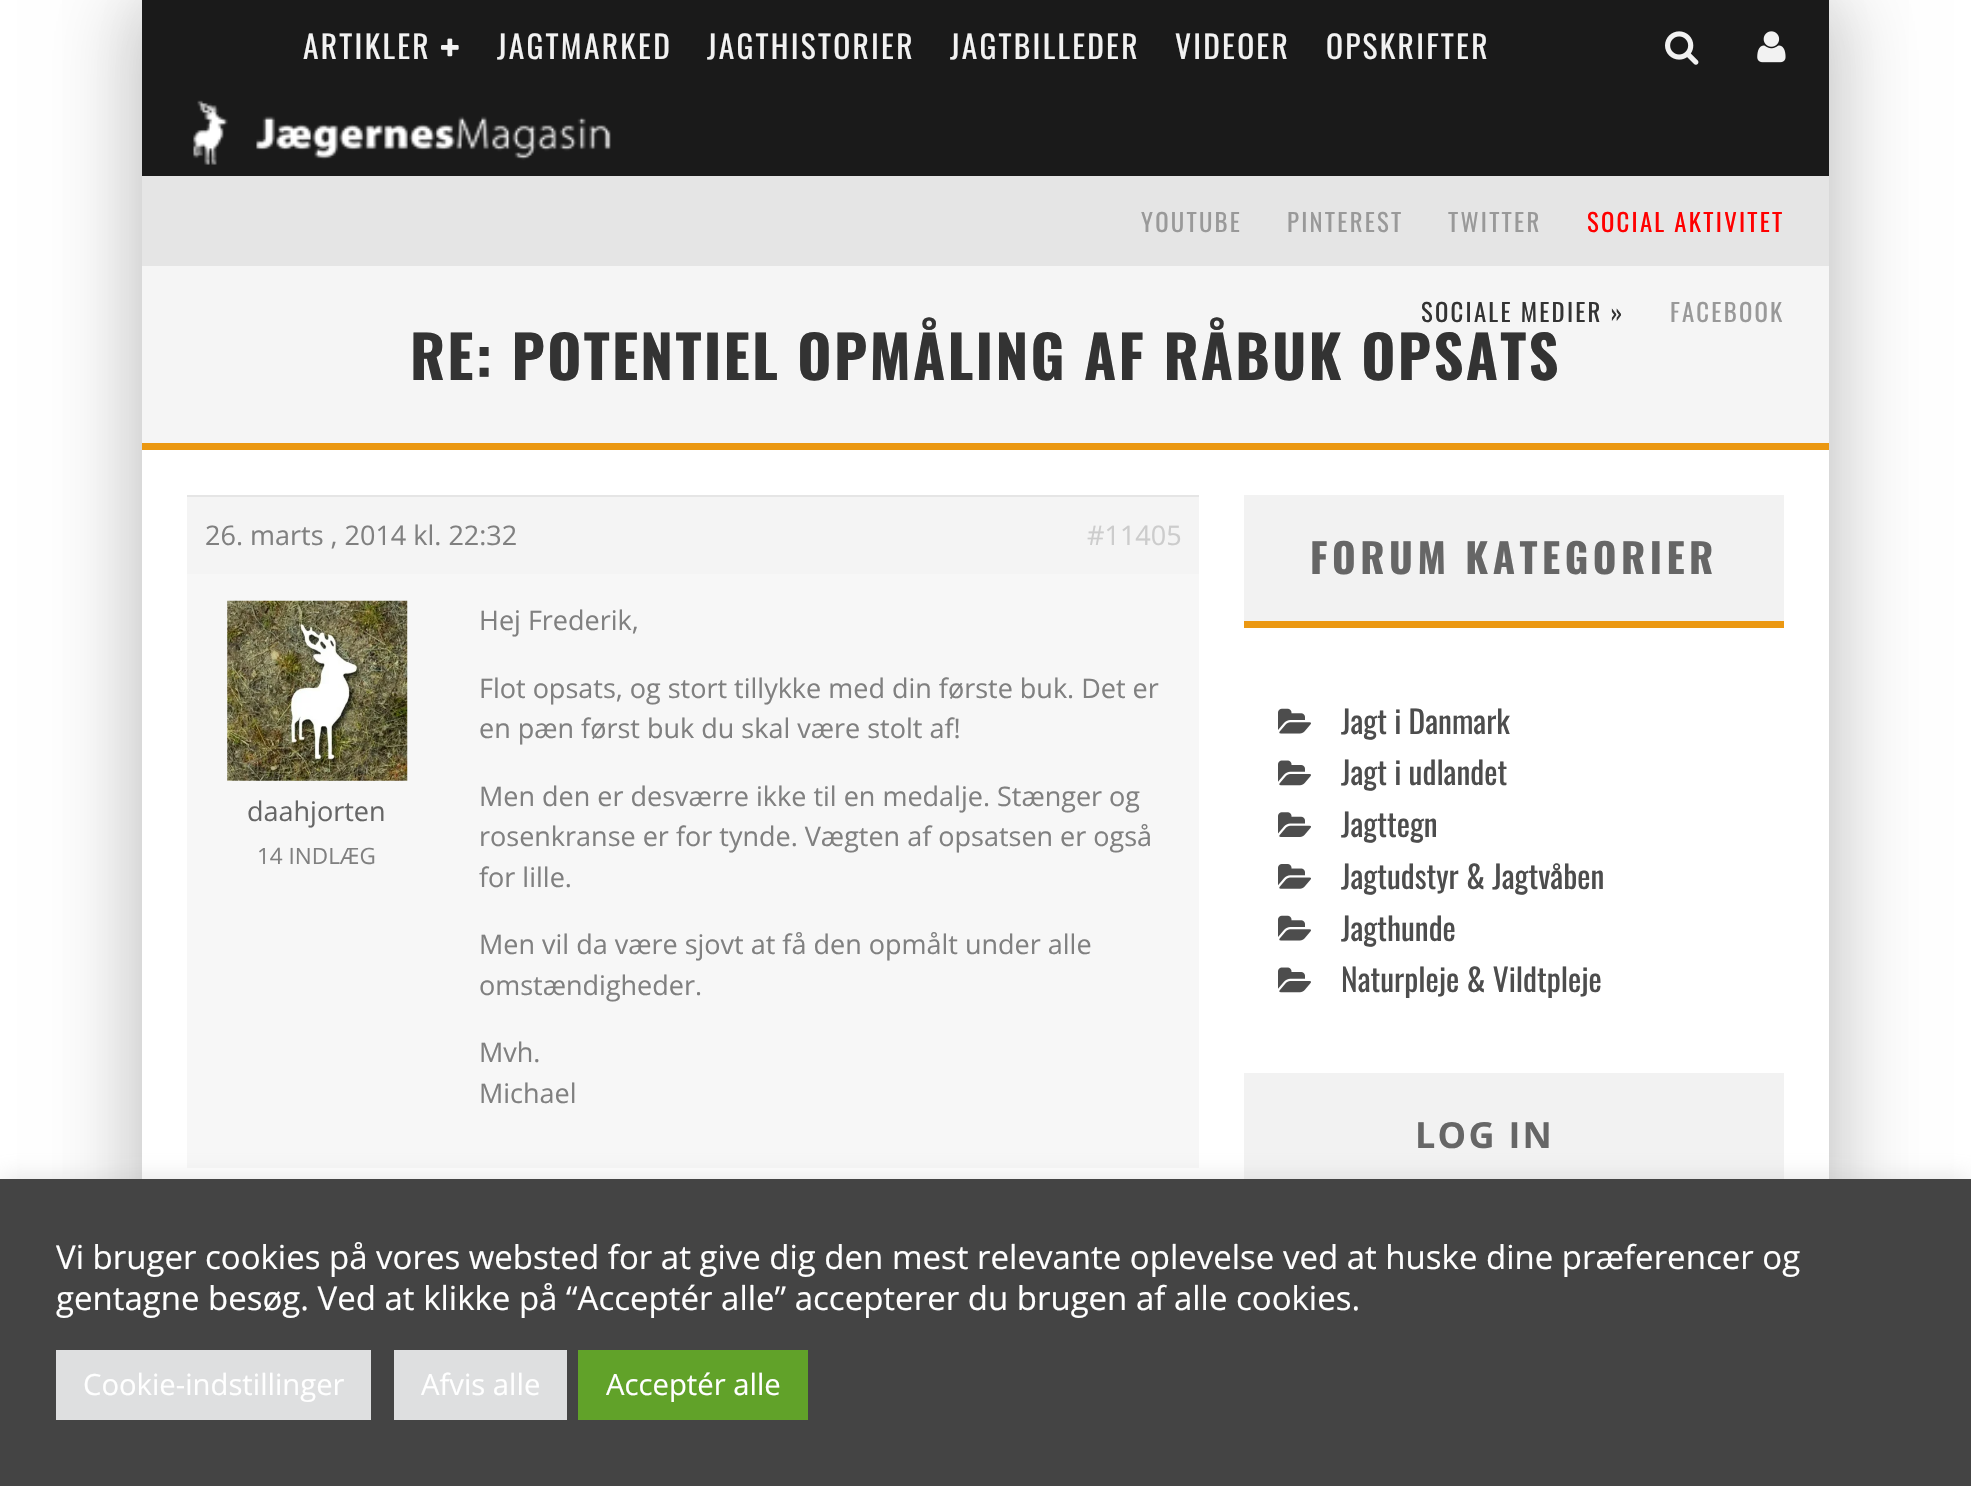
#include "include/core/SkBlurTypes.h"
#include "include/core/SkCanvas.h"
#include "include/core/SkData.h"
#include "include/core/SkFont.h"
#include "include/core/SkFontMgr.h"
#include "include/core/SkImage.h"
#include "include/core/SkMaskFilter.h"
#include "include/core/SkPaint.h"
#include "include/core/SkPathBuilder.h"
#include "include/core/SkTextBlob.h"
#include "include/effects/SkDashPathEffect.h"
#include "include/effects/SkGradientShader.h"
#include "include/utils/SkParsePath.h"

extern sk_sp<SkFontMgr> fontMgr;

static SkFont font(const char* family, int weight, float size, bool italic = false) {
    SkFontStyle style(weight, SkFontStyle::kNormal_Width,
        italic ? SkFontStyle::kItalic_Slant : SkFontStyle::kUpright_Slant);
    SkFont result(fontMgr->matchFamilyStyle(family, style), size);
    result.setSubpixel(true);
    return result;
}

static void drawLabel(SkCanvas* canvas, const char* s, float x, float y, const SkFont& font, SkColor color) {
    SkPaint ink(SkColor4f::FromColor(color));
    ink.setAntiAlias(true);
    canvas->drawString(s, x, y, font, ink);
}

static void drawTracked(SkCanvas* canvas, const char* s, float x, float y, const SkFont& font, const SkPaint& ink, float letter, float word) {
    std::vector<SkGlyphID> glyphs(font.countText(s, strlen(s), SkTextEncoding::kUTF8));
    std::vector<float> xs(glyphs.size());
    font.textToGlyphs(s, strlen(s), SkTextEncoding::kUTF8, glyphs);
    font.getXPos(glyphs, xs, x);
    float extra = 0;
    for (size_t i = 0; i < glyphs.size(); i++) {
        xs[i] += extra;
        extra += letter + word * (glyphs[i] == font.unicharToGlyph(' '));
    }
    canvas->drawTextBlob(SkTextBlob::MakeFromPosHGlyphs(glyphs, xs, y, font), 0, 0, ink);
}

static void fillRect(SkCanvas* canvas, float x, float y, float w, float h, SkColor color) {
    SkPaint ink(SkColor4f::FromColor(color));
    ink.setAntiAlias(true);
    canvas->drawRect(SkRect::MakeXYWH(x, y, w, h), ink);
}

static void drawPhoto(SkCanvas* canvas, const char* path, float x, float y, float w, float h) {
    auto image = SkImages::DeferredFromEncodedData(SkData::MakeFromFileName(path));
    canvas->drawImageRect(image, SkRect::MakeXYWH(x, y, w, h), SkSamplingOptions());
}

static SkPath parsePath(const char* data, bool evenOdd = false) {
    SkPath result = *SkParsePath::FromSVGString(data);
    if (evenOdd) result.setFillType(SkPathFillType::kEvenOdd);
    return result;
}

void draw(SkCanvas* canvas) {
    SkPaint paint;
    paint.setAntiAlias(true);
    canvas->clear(0xFFFFFFFF);
    canvas->save();
    canvas->clipPath(parsePath("M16 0H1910V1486H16ZM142 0H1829V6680H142Z", true), true);
    paint.setColor(0x26000000);
    paint.setMaskFilter(SkMaskFilter::MakeBlur(kNormal_SkBlurStyle, 34));
    canvas->drawRect(SkRect::MakeXYWH(119, 0, 1688, 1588), paint);
    paint.setMaskFilter(nullptr);
    canvas->restore();
    canvas->save();
    canvas->clipPath(parsePath("M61 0H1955V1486H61ZM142 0H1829V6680H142Z", true), true);
    paint.setMaskFilter(SkMaskFilter::MakeBlur(kNormal_SkBlurStyle, 34));
    canvas->drawRect(SkRect::MakeXYWH(164, 0, 1688, 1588), paint);
    paint.setMaskFilter(nullptr);
    canvas->restore();
    fillRect(canvas, 142, 0, 1687, 176, 0xFF1A1A1A);
    SkFont font1 = font("Oswald", 400, 31.5f);
    paint.setColor(0xFFF2F2F2);
    drawTracked(canvas, "ARTIKLER", 303, 59, font1, paint, 2.25f, 0);
    drawPhoto(canvas, "assets/img1.png", 441, 38, 18, 19);
    drawTracked(canvas, "JAGTMARKED", 497, 59, font1, paint, 2.25f, 0);
    drawTracked(canvas, "JAGTHISTORIER", 707, 59, font1, paint, 2.25f, 0);
    drawTracked(canvas, "JAGTBILLEDER", 950, 59, font1, paint, 2.25f, 0);
    drawTracked(canvas, "VIDEOER", 1175, 59, font1, paint, 2.25f, 0);
    drawTracked(canvas, "OPSKRIFTER", 1326, 59, font1, paint, 2.25f, 0);
    drawPhoto(canvas, "assets/img2.png", 1665, 31, 34, 34);
    drawPhoto(canvas, "assets/img3.png", 1757, 31, 29, 32);
    drawPhoto(canvas, "assets/img4.png", 193, 100, 418, 65);
    fillRect(canvas, 142, 176, 1687, 90, 0xFFE5E5E5);
    SkFont font2 = font("Oswald", 400, 24.75f);
    paint.setColor(0xFF999999);
    drawTracked(canvas, "YOUTUBE", 1141, 232, font2, paint, 2.25f, 0);
    drawTracked(canvas, "PINTEREST", 1287, 232, font2, paint, 2.25f, 0);
    drawTracked(canvas, "TWITTER", 1448, 232, font2, paint, 2.25f, 0);
    paint.setColor(0xFFFF0000);
    drawTracked(canvas, "SOCIAL AKTIVITET", 1587, 232, font2, paint, 2.25f, 0);
    fillRect(canvas, 142, 266, 1687, 177, 0xFFF5F5F5);
    paint.setColor(0xFF333333);
    drawTracked(canvas, "SOCIALE MEDIER »", 1421, 322, font2, paint, 2.25f, 0);
    paint.setColor(0xFF999999);
    drawTracked(canvas, "FACEBOOK", 1670, 322, font2, paint, 2.25f, 0);
    fillRect(canvas, 142, 443, 1687, 7, 0xFFEB9812);
    SkFont font3 = font("Oswald", 700, 58.5f);
    paint.setColor(0xFF333333);
    drawTracked(canvas, "RE: POTENTIEL OPMÅLING AF RÅBUK OPSATS", 410, 380, font3, paint, 2.25f, 0);
    fillRect(canvas, 187, 497, 1012, 77, 0xFFF4F4F4);
    fillRect(canvas, 187, 495, 1012, 2, 0xFFE5E5E5);
    SkFont font4 = font("Open Sans", 400, 27);
    drawLabel(canvas, "26. marts , 2014 kl. 22:32", 205, 545, font4, 0xFF808080);
    drawLabel(canvas, "#11405", 1087, 545, font4, 0xFFCCCCCC);
    fillRect(canvas, 187, 574, 1012, 594, 0xFFF7F7F7);
    drawPhoto(canvas, "assets/img5.png", 227, 600, 181, 181);
    drawLabel(canvas, "daahjorten", 247, 821, font4, 0xFF666666);
    SkFont font5 = font("Open Sans", 400, 22.5f);
    drawLabel(canvas, "14 INDLÆG", 257, 864, font5, 0xFF808080);
    drawLabel(canvas, "Hej Frederik,", 479, 630, font4, 0xFF808080);
    drawLabel(canvas, "Flot opsats, og stort tillykke med din første buk. Det er", 479, 698, font4, 0xFF808080);
    drawLabel(canvas, "en pæn først buk du skal være stolt af!", 479, 738, font4, 0xFF808080);
    drawLabel(canvas, "Men den er desværre ikke til en medalje. Stænger og", 479, 806, font4, 0xFF808080);
    drawLabel(canvas, "rosenkranse er for tynde. Vægten af opsatsen er også", 479, 846, font4, 0xFF808080);
    drawLabel(canvas, "for lille.", 479, 887, font4, 0xFF808080);
    drawLabel(canvas, "Men vil da være sjovt at få den opmålt under alle", 479, 954, font4, 0xFF808080);
    drawLabel(canvas, "omstændigheder.", 479, 995, font4, 0xFF808080);
    drawLabel(canvas, "Mvh.", 479, 1062, font4, 0xFF808080);
    drawLabel(canvas, "Michael", 479, 1103, font4, 0xFF808080);
    fillRect(canvas, 1244, 495, 540, 126, 0xFFF2F2F2);
    fillRect(canvas, 1244, 621, 540, 7, 0xFFEB9812);
    SkFont font6 = font("Oswald", 700, 40.5f);
    paint.setColor(0xFF666666);
    drawTracked(canvas, "FORUM KATEGORIER", 1310, 574, font6, paint, 4.5f, 0);
    drawPhoto(canvas, "assets/img6.png", 1278, 708, 33, 26);
    drawLabel(canvas, "Jagt i Danmark", 1341, 734, font1, 0xFF4D4D4D);
    drawPhoto(canvas, "assets/img7.png", 1278, 760, 33, 26);
    drawLabel(canvas, "Jagt i udlandet", 1341, 785, font1, 0xFF4D4D4D);
    drawPhoto(canvas, "assets/img8.png", 1278, 812, 33, 25);
    drawLabel(canvas, "Jagttegn", 1341, 837, font1, 0xFF4D4D4D);
    drawPhoto(canvas, "assets/img9.png", 1278, 864, 33, 25);
    drawLabel(canvas, "Jagtudstyr & Jagtvåben", 1341, 889, font1, 0xFF4D4D4D);
    drawPhoto(canvas, "assets/img6.png", 1278, 915, 33, 26);
    drawLabel(canvas, "Jagthunde", 1341, 941, font1, 0xFF4D4D4D);
    drawPhoto(canvas, "assets/img7.png", 1278, 967, 33, 26);
    drawLabel(canvas, "Naturpleje & Vildtpleje", 1341, 992, font1, 0xFF4D4D4D);
    fillRect(canvas, 1244, 1073, 540, 106, 0xFFF2F2F2);
    SkFont font7 = font("Open Sans", 700, 36);
    drawTracked(canvas, "LOG IN", 1415, 1148, font7, paint, 2.25f, 0);
    paint.setColor(0x4DACABAB);
    paint.setMaskFilter(SkMaskFilter::MakeBlur(kNormal_SkBlurStyle, 11));
    canvas->drawRect(SkRect::MakeXYWH(0, 1177, 1971, 308), paint);
    paint.setMaskFilter(nullptr);
    fillRect(canvas, 0, 1179, 1971, 307, 0xFF444444);
    SkFont font8 = font("Open Sans", 400, 33);
    drawLabel(canvas, "Vi bruger cookies på vores websted for at give dig den mest relevante oplevelse ved at huske dine præferencer og", 56, 1269, font8, 0xFFFFFFFF);
    drawLabel(canvas, "gentagne besøg. Ved at klikke på “Acceptér alle” accepterer du brugen af alle cookies.", 56, 1310, font8, 0xFFFFFFFF);
    fillRect(canvas, 56, 1350, 315, 70, 0xFFDEDFE0);
    SkFont font9 = font("Open Sans", 400, 29.25f);
    drawLabel(canvas, "Cookie-indstillinger", 83, 1395, font9, 0xFFFFFFFF);
    fillRect(canvas, 394, 1350, 173, 70, 0xFFDEDFE0);
    drawLabel(canvas, "Afvis alle", 421, 1395, font9, 0xFFFFFFFF);
    fillRect(canvas, 578, 1350, 230, 70, 0xFF61A229);
    drawLabel(canvas, "Acceptér alle", 606, 1395, font9, 0xFFFFFFFF);
}
